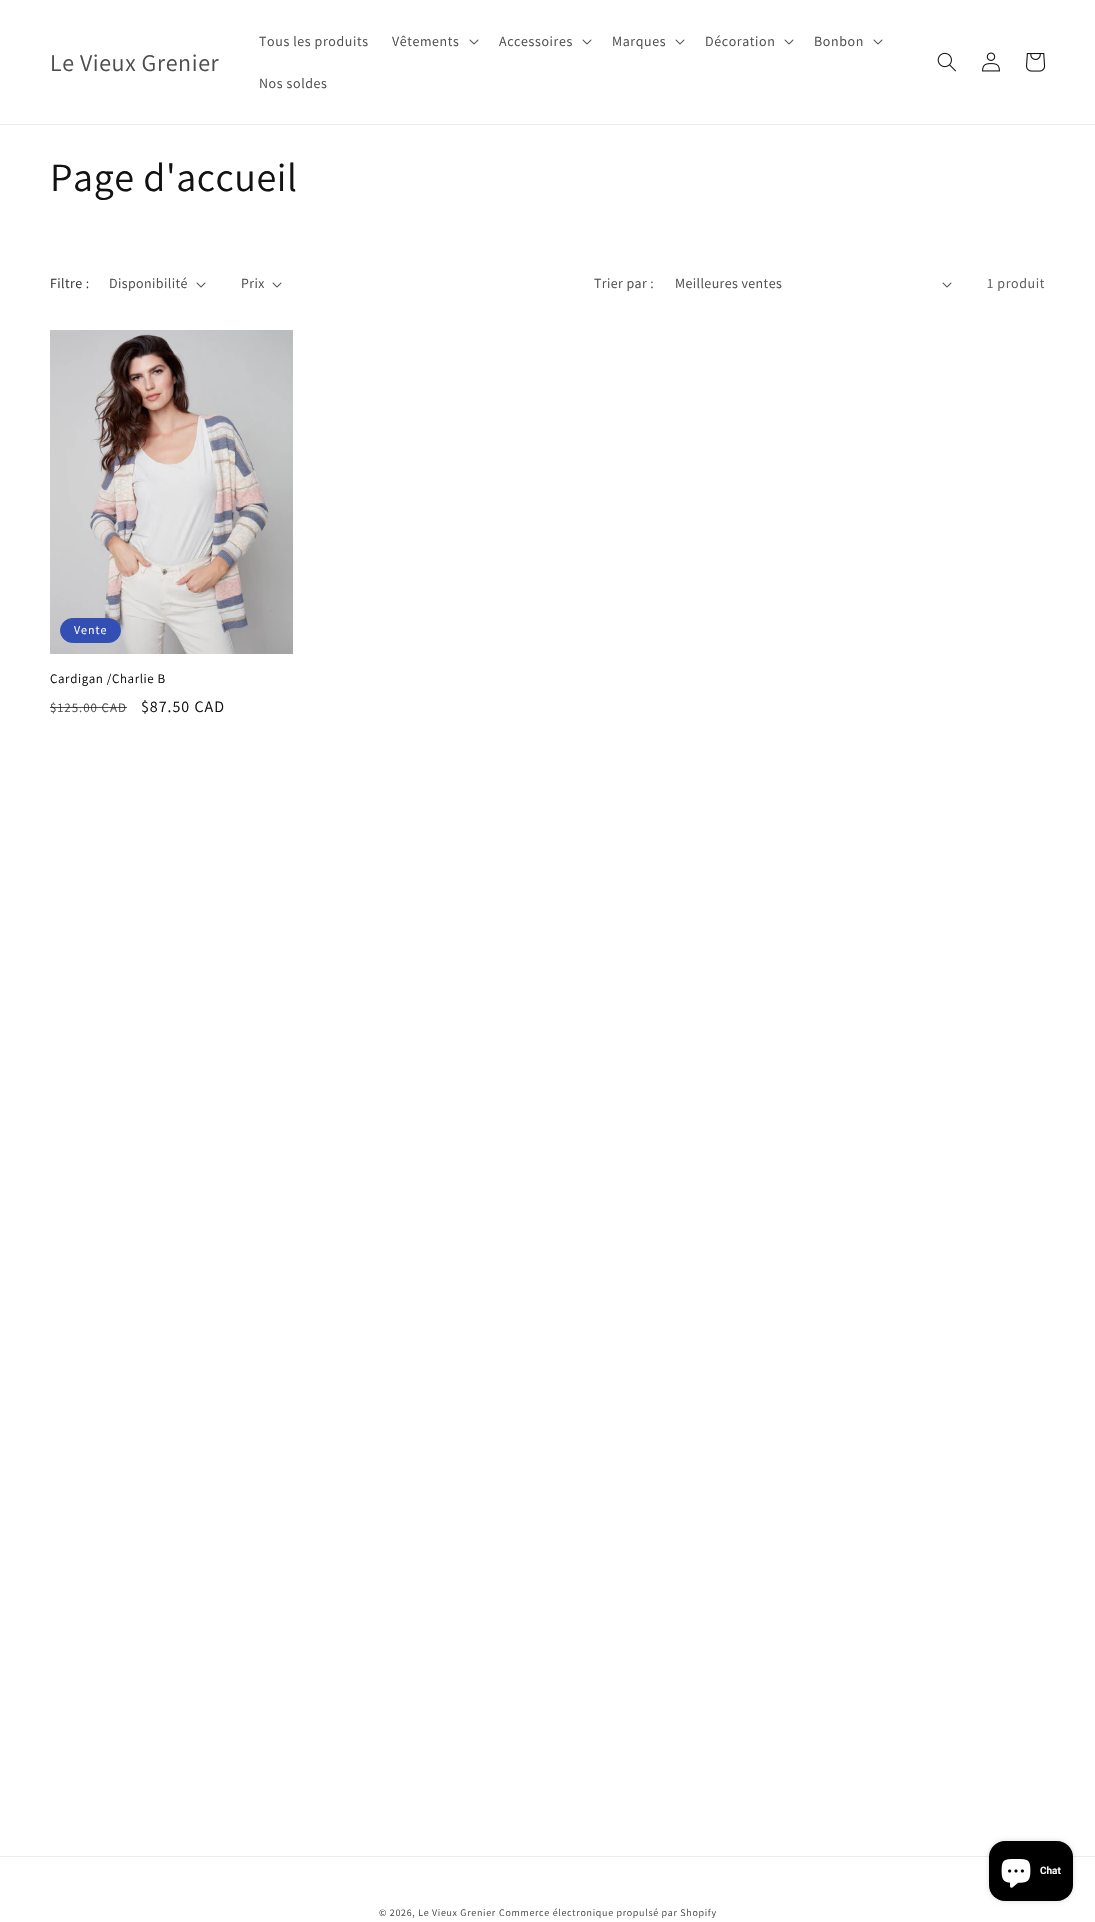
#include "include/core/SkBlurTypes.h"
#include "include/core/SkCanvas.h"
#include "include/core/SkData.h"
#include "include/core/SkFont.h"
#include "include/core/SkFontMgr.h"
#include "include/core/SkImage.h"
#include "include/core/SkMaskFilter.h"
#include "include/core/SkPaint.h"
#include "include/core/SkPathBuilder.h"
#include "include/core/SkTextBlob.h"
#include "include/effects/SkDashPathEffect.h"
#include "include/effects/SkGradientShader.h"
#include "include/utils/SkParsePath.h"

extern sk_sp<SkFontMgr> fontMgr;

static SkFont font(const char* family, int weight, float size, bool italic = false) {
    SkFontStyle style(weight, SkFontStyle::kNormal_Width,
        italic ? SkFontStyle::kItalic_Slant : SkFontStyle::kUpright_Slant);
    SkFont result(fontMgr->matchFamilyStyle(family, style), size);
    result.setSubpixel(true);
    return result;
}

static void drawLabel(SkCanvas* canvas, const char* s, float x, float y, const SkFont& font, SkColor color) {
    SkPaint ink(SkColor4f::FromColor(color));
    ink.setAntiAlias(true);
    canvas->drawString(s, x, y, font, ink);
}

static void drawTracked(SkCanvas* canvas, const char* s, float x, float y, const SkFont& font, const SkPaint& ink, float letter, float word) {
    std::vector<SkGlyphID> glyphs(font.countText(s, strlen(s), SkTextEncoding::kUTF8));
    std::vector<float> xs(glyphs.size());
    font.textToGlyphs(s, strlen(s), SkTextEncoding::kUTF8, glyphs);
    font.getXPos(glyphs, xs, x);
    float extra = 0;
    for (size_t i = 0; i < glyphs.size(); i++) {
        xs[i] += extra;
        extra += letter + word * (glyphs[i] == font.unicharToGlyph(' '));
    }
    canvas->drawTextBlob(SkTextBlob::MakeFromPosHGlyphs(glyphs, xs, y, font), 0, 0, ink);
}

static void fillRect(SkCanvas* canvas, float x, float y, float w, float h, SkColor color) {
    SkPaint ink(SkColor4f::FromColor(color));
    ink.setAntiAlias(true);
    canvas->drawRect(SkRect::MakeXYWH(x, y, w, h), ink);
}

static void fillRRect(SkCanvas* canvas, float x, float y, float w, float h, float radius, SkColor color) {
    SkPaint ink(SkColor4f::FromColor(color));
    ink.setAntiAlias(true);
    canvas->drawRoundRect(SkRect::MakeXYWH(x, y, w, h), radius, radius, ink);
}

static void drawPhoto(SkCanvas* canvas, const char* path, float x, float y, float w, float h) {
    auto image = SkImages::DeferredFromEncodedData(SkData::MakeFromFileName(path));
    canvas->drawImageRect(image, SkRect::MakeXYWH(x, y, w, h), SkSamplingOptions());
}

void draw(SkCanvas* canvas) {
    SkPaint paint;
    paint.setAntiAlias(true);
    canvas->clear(0xFFFFFFFF);
    fillRect(canvas, 0, 124, 1095, 1, 0xFFECECEC);
    SkFont font1 = font("Assistant", 400, 24);
    paint.setColor(0xFF4D4D4D);
    drawTracked(canvas, "Le Vieux Grenier", 50, 71, font1, paint, 0.6f, 0);
    SkFont font2 = font("Assistant", 400, 14);
    drawTracked(canvas, "Tous les produits", 259, 46, font2, paint, 0.6f, 0);
    drawTracked(canvas, "Vêtements", 392, 46, font2, paint, 0.6f, 0);
    drawPhoto(canvas, "assets/img1.png", 469, 39, 10, 6);
    drawTracked(canvas, "Accessoires", 499, 46, font2, paint, 0.6f, 0);
    drawPhoto(canvas, "assets/img1.png", 582, 39, 10, 6);
    drawTracked(canvas, "Marques", 612, 46, font2, paint, 0.6f, 0);
    drawPhoto(canvas, "assets/img1.png", 675, 39, 10, 6);
    drawTracked(canvas, "Décoration", 705, 46, font2, paint, 0.6f, 0);
    drawPhoto(canvas, "assets/img1.png", 784, 39, 10, 6);
    drawTracked(canvas, "Bonbon", 814, 46, font2, paint, 0.6f, 0);
    drawPhoto(canvas, "assets/img1.png", 873, 39, 10, 6);
    drawTracked(canvas, "Nos soldes", 259, 88, font2, paint, 0.6f, 0);
    drawPhoto(canvas, "assets/img2.png", 937, 52, 19, 20);
    drawPhoto(canvas, "assets/img3.png", 982, 52, 18, 20);
    drawPhoto(canvas, "assets/img4.png", 1026, 53, 20, 19);
    SkFont font3 = font("Assistant", 400, 40);
    paint.setColor(0xFF121212);
    drawTracked(canvas, "Page d'accueil", 50, 191, font3, paint, 0.6f, 0);
    paint.setColor(0xFF363636);
    drawTracked(canvas, "Filtre :", 50, 288, font2, paint, 0.4f, 0);
    paint.setColor(0xFF4D4D4D);
    drawTracked(canvas, "Disponibilité", 109, 288, font2, paint, 0.4f, 0);
    drawPhoto(canvas, "assets/img1.png", 196, 282, 10, 6);
    drawTracked(canvas, "Prix", 241, 288, font2, paint, 0.4f, 0);
    drawPhoto(canvas, "assets/img1.png", 272, 282, 10, 6);
    drawTracked(canvas, "Trier par :", 594, 288, font2, paint, 0.4f, 0);
    drawTracked(canvas, "Meilleures ventes", 675, 288, font2, paint, 0.4f, 0);
    drawPhoto(canvas, "assets/img1.png", 942, 282, 10, 6);
    paint.setColor(0xFF595959);
    drawTracked(canvas, "1 produit", 987, 288, font2, paint, 0.6f, 0);
    drawPhoto(canvas, "assets/img5.png", 50, 330, 243, 324);
    paint.setColor(0xFF334FB4);
    canvas->drawRoundRect(SkRect::MakeXYWH(60.5f, 618.5f, 60, 24), 12, 12, paint);
    paint.setStroke(true);
    paint.setStrokeWidth(1);
    canvas->drawRoundRect(SkRect::MakeXYWH(60.5f, 618.5f, 60, 24), 12, 12, paint);
    SkFont font4 = font("Assistant", 400, 12);
    paint.setStroke(false);
    paint.setColor(0xFFFFFFFF);
    drawTracked(canvas, "Vente", 74, 634, font4, paint, 1, 0);
    SkFont font5 = font("Assistant", 400, 13);
    paint.setColor(0xFF121212);
    drawTracked(canvas, "Cardigan /Charlie B", 50, 683, font5, paint, 0.6f, 0);
    paint.setColor(0xFF4D4D4D);
    drawTracked(canvas, "$125.00 CAD", 50, 712, font5, paint, 1, 0);
    fillRect(canvas, 50, 707, 77, 1, 0xBF121212);
    SkFont font6 = font("Assistant", 400, 16);
    paint.setColor(0xFF121212);
    drawTracked(canvas, "$87.50 CAD", 141, 712, font6, paint, 1, 0);
    fillRect(canvas, 0, 1856, 1095, 1, 0xFFECECEC);
    paint.setColor(0x26000000);
    paint.setMaskFilter(SkMaskFilter::MakeBlur(kNormal_SkBlurStyle, 2.5f));
    canvas->drawRoundRect(SkRect::MakeXYWH(989, 1841, 84, 60), 16, 16, paint);
    paint.setMaskFilter(nullptr);
    fillRRect(canvas, 989, 1841, 84, 60, 16, 0xFF000000);
    drawPhoto(canvas, "assets/img6.png", 1001, 1859, 30, 29);
    SkFont font7 = font("Roboto", 600, 10);
    drawLabel(canvas, "Chat", 1040, 1874, font7, 0xFFFFFFFF);
    SkFont font8 = font("Assistant", 400, 10);
    paint.setColor(0xFF4D4D4D);
    drawTracked(canvas, "© 2026, Le Vieux Grenier", 379, 1916, font8, paint, 0.7f, 0);
    drawTracked(canvas, "Commerce électronique propulsé par Shopify", 499, 1916, font8, paint, 0.7f, 0);
}
